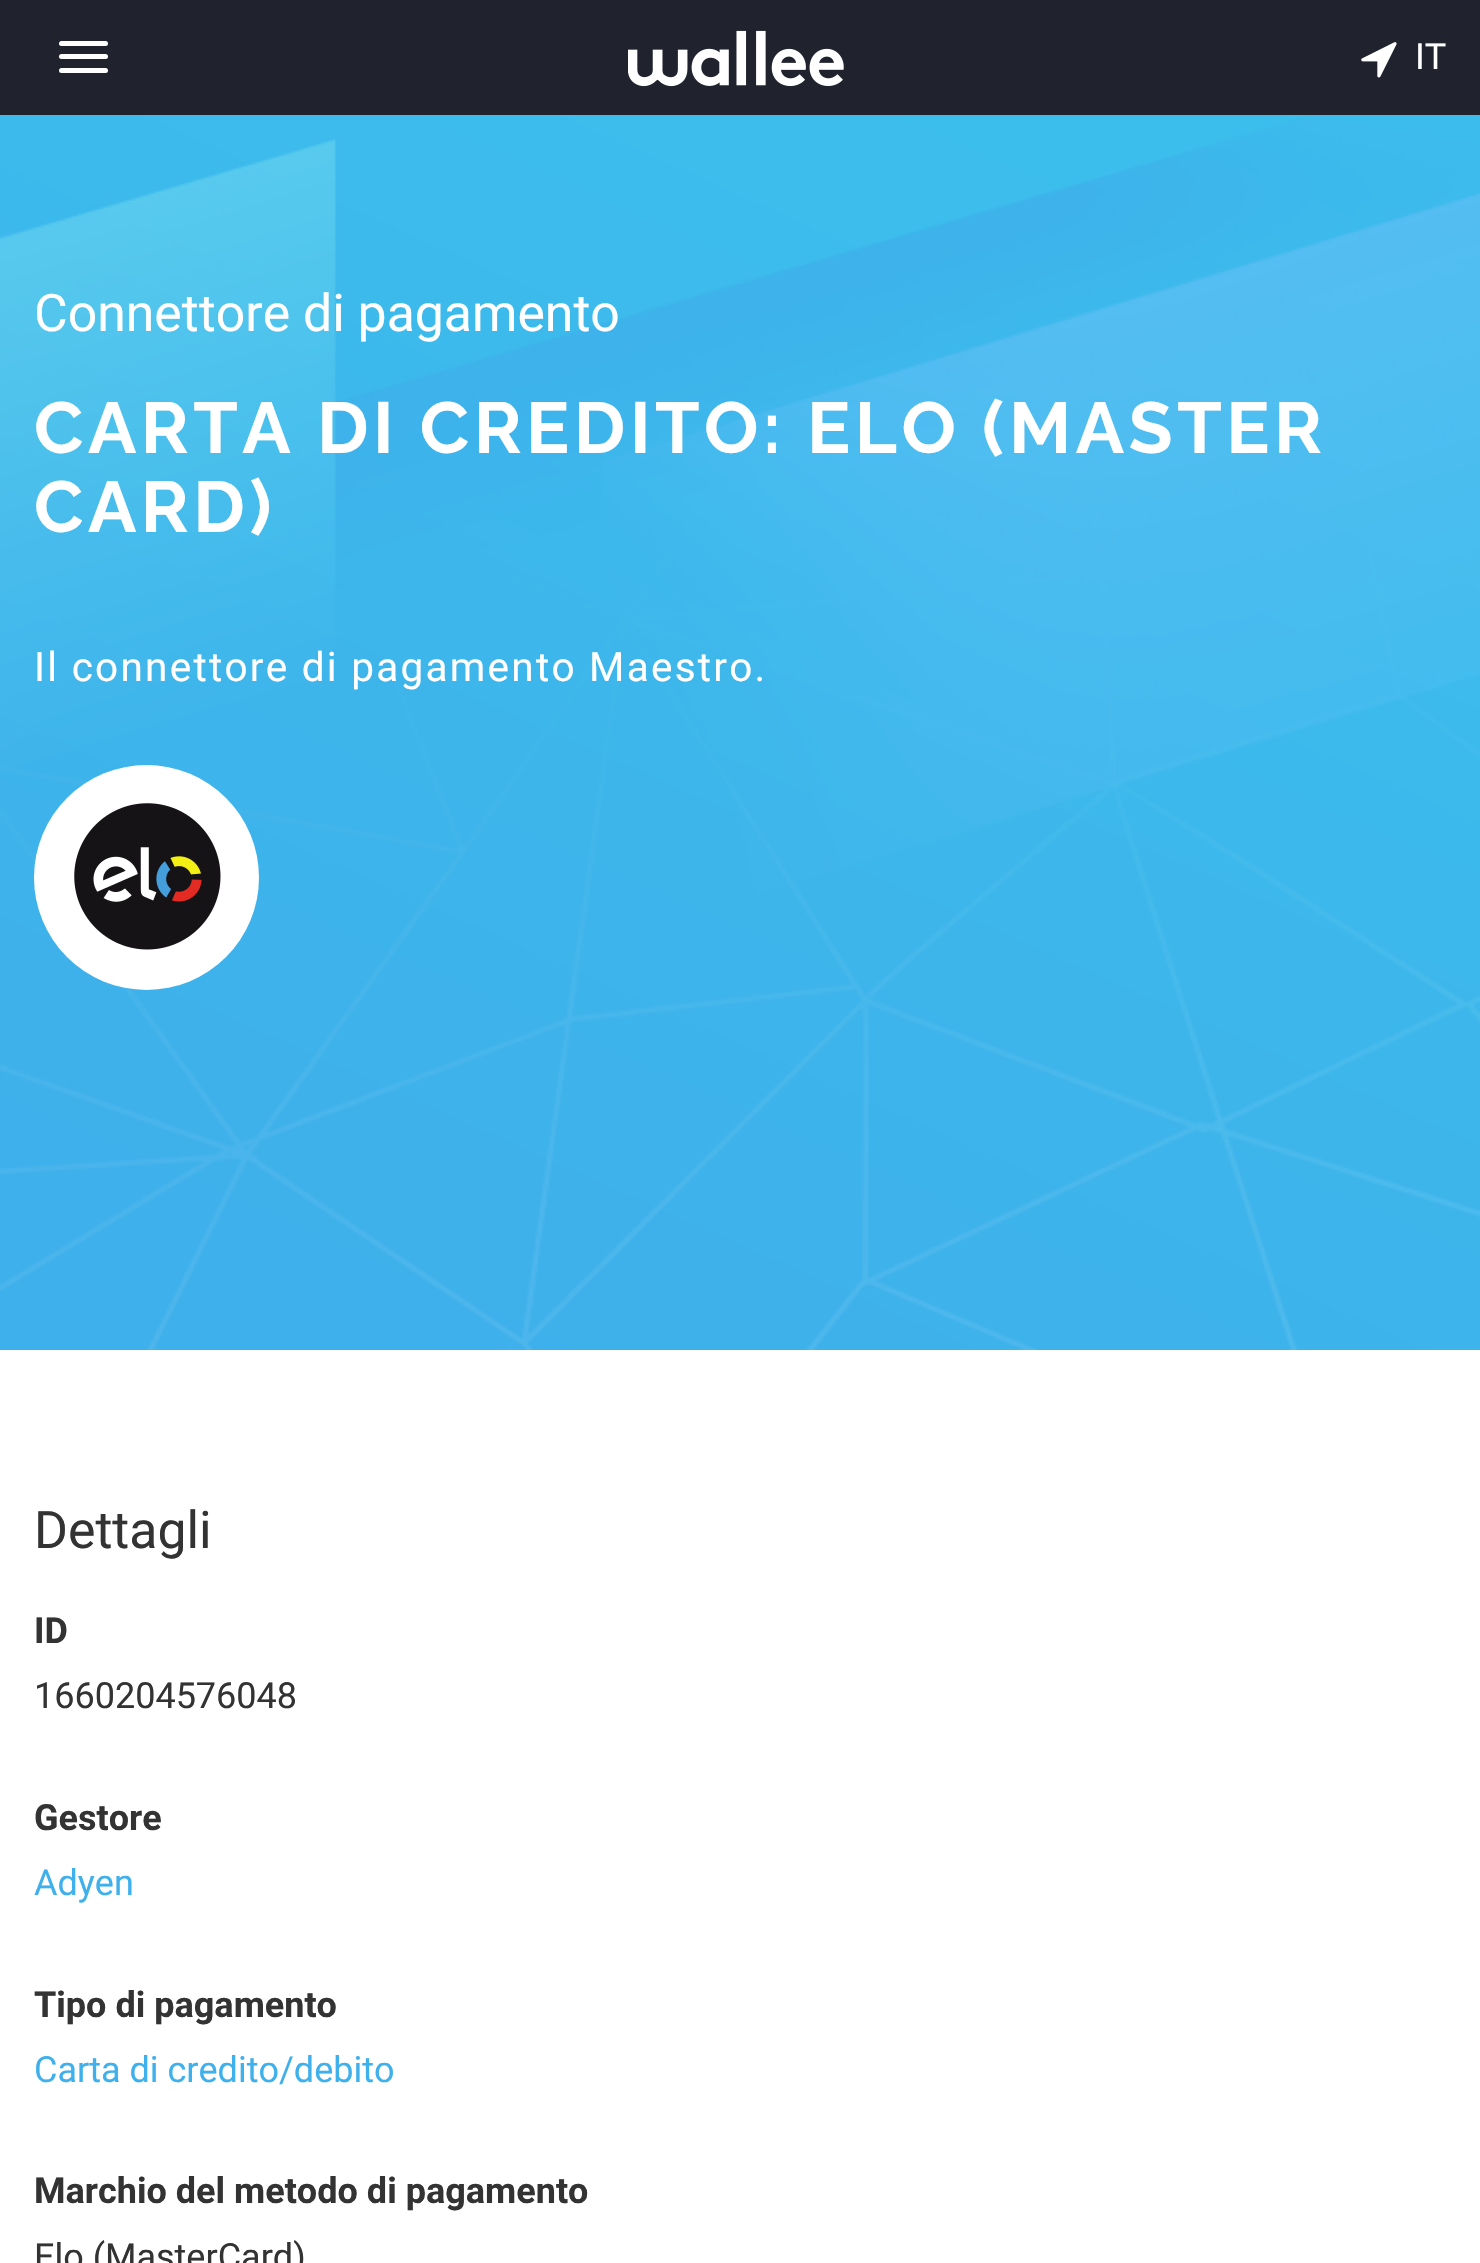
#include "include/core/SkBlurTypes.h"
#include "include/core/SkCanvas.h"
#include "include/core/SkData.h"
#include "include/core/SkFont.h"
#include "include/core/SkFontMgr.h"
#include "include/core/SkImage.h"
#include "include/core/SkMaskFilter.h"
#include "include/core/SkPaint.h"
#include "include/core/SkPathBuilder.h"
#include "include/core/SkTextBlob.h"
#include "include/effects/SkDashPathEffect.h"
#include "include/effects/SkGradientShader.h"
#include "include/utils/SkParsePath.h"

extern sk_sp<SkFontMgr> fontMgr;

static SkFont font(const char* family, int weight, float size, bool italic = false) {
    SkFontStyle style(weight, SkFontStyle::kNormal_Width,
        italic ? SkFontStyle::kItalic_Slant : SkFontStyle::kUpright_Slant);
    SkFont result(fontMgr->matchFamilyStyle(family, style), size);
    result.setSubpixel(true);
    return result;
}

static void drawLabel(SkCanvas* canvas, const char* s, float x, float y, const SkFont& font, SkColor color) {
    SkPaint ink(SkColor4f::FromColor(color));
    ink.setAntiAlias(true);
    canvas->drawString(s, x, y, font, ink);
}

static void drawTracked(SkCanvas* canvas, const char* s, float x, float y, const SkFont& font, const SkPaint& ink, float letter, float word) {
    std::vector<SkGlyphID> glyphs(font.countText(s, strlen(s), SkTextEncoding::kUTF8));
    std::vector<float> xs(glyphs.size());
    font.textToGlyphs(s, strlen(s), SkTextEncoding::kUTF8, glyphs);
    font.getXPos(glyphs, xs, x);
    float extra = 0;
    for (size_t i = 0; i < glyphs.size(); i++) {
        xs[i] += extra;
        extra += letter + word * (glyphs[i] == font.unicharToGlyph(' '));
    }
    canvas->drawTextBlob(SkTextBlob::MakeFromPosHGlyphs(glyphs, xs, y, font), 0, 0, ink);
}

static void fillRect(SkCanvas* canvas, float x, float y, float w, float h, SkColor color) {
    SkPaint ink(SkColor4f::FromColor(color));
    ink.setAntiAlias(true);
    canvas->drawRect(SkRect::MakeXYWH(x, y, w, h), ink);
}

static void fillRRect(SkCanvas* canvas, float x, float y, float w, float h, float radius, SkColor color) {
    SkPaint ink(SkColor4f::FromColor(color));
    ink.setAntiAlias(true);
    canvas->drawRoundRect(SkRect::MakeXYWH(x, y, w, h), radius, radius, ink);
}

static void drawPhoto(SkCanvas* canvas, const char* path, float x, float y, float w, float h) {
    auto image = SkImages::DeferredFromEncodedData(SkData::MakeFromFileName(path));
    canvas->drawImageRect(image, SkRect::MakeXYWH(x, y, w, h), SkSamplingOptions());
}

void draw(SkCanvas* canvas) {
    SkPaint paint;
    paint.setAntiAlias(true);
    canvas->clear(0xFFFFFFFF);
    drawPhoto(canvas, "assets/img1.png", 0, 115, 1480, 1235);
    fillRect(canvas, 0, 0, 1480, 115, 0xFF20232D);
    fillRRect(canvas, 59, 41, 49, 5, 2.5f, 0xFFFFFFFF);
    fillRRect(canvas, 59, 54, 49, 5, 2.5f, 0xFFFFFFFF);
    fillRRect(canvas, 59, 68, 49, 5, 2.5f, 0xFFFFFFFF);
    drawPhoto(canvas, "assets/img2.png", 628, 30, 216, 57);
    drawPhoto(canvas, "assets/img3.png", 1361, 42, 36, 36);
    SkFont font1 = font("Roboto", 400, 36);
    drawLabel(canvas, "IT", 1415, 69, font1, 0xFFFFFFFF);
    SkFont font2 = font("Roboto", 400, 51.75f);
    drawLabel(canvas, "Connettore di pagamento", 34, 331, font2, 0xFFFFFFFF);
    SkFont font3 = font("Raleway", 700, 72);
    paint.setColor(0xFFFFFFFF);
    drawTracked(canvas, "CARTA DI CREDITO: ELO (MASTER", 34, 453, font3, paint, 4.5f, 0);
    drawTracked(canvas, "CARD)", 34, 532, font3, paint, 4.5f, 0);
    SkFont font4 = font("Roboto", 400, 40.5f);
    drawTracked(canvas, "Il connettore di pagamento Maestro.", 34, 681, font4, paint, 2.25f, 0);
    canvas->drawCircle(146.5f, 877.5f, 112.5f, paint);
    drawPhoto(canvas, "assets/img4.png", 74, 803, 147, 147);
    drawLabel(canvas, "Dettagli", 34, 1548, font2, 0xFF333333);
    SkFont font5 = font("Roboto", 700, 36);
    drawLabel(canvas, "ID", 34, 1643, font5, 0xFF333333);
    drawLabel(canvas, "1660204576048", 34, 1708, font1, 0xFF333333);
    drawLabel(canvas, "Gestore", 34, 1830, font5, 0xFF333333);
    drawLabel(canvas, "Adyen", 34, 1895, font1, 0xFF3EB0EB);
    drawLabel(canvas, "Tipo di pagamento", 34, 2017, font5, 0xFF333333);
    drawLabel(canvas, "Carta di credito/debito", 34, 2082, font1, 0xFF3EB0EB);
    drawLabel(canvas, "Marchio del metodo di pagamento", 34, 2203, font5, 0xFF333333);
    drawLabel(canvas, "Elo (MasterCard)", 34, 2269, font1, 0xFF333333);
}
